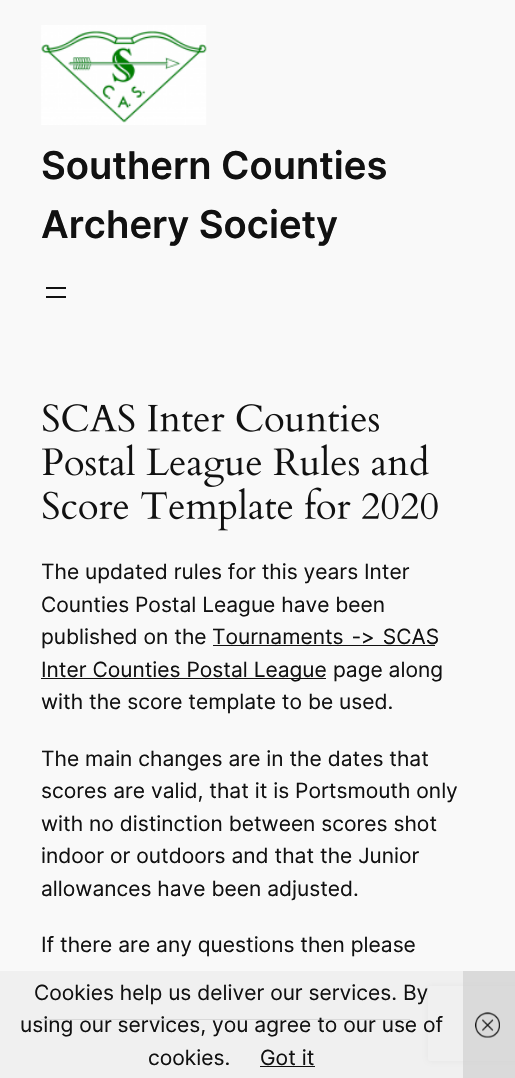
#include "include/core/SkBlurTypes.h"
#include "include/core/SkCanvas.h"
#include "include/core/SkData.h"
#include "include/core/SkFont.h"
#include "include/core/SkFontMgr.h"
#include "include/core/SkImage.h"
#include "include/core/SkMaskFilter.h"
#include "include/core/SkPaint.h"
#include "include/core/SkPathBuilder.h"
#include "include/core/SkTextBlob.h"
#include "include/effects/SkDashPathEffect.h"
#include "include/effects/SkGradientShader.h"
#include "include/utils/SkParsePath.h"

extern sk_sp<SkFontMgr> fontMgr;

static SkFont font(const char* family, int weight, float size, bool italic = false) {
    SkFontStyle style(weight, SkFontStyle::kNormal_Width,
        italic ? SkFontStyle::kItalic_Slant : SkFontStyle::kUpright_Slant);
    SkFont result(fontMgr->matchFamilyStyle(family, style), size);
    result.setSubpixel(true);
    return result;
}

static void drawLabel(SkCanvas* canvas, const char* s, float x, float y, const SkFont& font, SkColor color) {
    SkPaint ink(SkColor4f::FromColor(color));
    ink.setAntiAlias(true);
    canvas->drawString(s, x, y, font, ink);
}

static void drawTracked(SkCanvas* canvas, const char* s, float x, float y, const SkFont& font, const SkPaint& ink, float letter, float word) {
    std::vector<SkGlyphID> glyphs(font.countText(s, strlen(s), SkTextEncoding::kUTF8));
    std::vector<float> xs(glyphs.size());
    font.textToGlyphs(s, strlen(s), SkTextEncoding::kUTF8, glyphs);
    font.getXPos(glyphs, xs, x);
    float extra = 0;
    for (size_t i = 0; i < glyphs.size(); i++) {
        xs[i] += extra;
        extra += letter + word * (glyphs[i] == font.unicharToGlyph(' '));
    }
    canvas->drawTextBlob(SkTextBlob::MakeFromPosHGlyphs(glyphs, xs, y, font), 0, 0, ink);
}

static void fillRect(SkCanvas* canvas, float x, float y, float w, float h, SkColor color) {
    SkPaint ink(SkColor4f::FromColor(color));
    ink.setAntiAlias(true);
    canvas->drawRect(SkRect::MakeXYWH(x, y, w, h), ink);
}

static void drawPhoto(SkCanvas* canvas, const char* path, float x, float y, float w, float h) {
    auto image = SkImages::DeferredFromEncodedData(SkData::MakeFromFileName(path));
    canvas->drawImageRect(image, SkRect::MakeXYWH(x, y, w, h), SkSamplingOptions());
}

static SkPath parsePath(const char* data, bool evenOdd = false) {
    SkPath result = *SkParsePath::FromSVGString(data);
    if (evenOdd) result.setFillType(SkPathFillType::kEvenOdd);
    return result;
}

void draw(SkCanvas* canvas) {
    SkPaint paint;
    paint.setAntiAlias(true);
    canvas->clear(0xFFF9F9F9);
    drawPhoto(canvas, "assets/img1.png", 41, 25, 166, 100);
    SkFont font1 = font("Inter", 600, 38.25f);
    drawLabel(canvas, "Southern Counties", 41, 179, font1, 0xFF111111);
    drawLabel(canvas, "Archery Society", 41, 238, font1, 0xFF111111);
    fillRect(canvas, 46, 287, 20, 2, 0xFF111111);
    fillRect(canvas, 46, 296, 20, 2, 0xFF111111);
    drawPhoto(canvas, "assets/img2.png", 42, 404, 337, 28);
    drawPhoto(canvas, "assets/img3.png", 42, 444, 387, 43);
    drawPhoto(canvas, "assets/img4.png", 42, 487, 396, 44);
    SkFont font2 = font("Inter", 400, 21);
    drawLabel(canvas, "The updated rules for this years Inter", 41, 579, font2, 0xFF111111);
    drawLabel(canvas, "Counties Postal League have been", 41, 612, font2, 0xFF111111);
    drawLabel(canvas, "published on the", 41, 644, font2, 0xFF111111);
    paint.setColor(0xFF111111);
    drawTracked(canvas, "Tournaments -> SCAS", 212, 644, font2, paint, 0, 2);
    fillRect(canvas, 213, 645, 222, 1, 0xFF111111);
    fillRect(canvas, 41, 678, 285, 1, 0xFF111111);
    drawLabel(canvas, "Inter Counties Postal League", 41, 677, font2, 0xFF111111);
    drawLabel(canvas, "page along", 333, 677, font2, 0xFF111111);
    drawLabel(canvas, "with the score template to be used.", 41, 709, font2, 0xFF111111);
    drawLabel(canvas, "The main changes are in the dates that", 41, 766, font2, 0xFF111111);
    drawLabel(canvas, "scores are valid, that it is Portsmouth only", 41, 798, font2, 0xFF111111);
    drawLabel(canvas, "with no distinction between scores shot", 41, 831, font2, 0xFF111111);
    drawLabel(canvas, "indoor or outdoors and that the Junior", 41, 863, font2, 0xFF111111);
    drawLabel(canvas, "allowances have been adjusted.", 41, 896, font2, 0xFF111111);
    drawLabel(canvas, "If there are any questions then please", 41, 952, font2, 0xFF111111);
    fillRect(canvas, 41, 1019, 369, 1, 0xFF111111);
    canvas->save();
    canvas->clipPath(parsePath("M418 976H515V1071H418ZM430.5 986H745.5C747 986 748 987 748 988.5V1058.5C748 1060 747 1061 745.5 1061H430.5C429 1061 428 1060 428 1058.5V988.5C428 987 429 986 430.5 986Z", true), true);
    paint.setColor(0xFF808080);
    paint.setMaskFilter(SkMaskFilter::MakeBlur(kNormal_SkBlurStyle, 3));
    canvas->drawRoundRect(SkRect::MakeXYWH(428, 986, 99, 75), 2.5f, 2.5f, paint);
    paint.setMaskFilter(nullptr);
    canvas->restore();
    fillRect(canvas, 0, 971, 515, 107, 0xE6EEEEEE);
    drawLabel(canvas, "Cookies help us deliver our services. By", 34, 1000, font2, 0xFF111111);
    drawLabel(canvas, "using our services, you agree to our use of", 20, 1032, font2, 0xFF111111);
    drawLabel(canvas, "cookies.", 148, 1065, font2, 0xFF111111);
    drawLabel(canvas, "Got it", 260, 1065, font2, 0xFF111111);
    fillRect(canvas, 260, 1066, 55, 1, 0xFF111111);
    fillRect(canvas, 463, 971, 52, 107, 0x99CCCCCC);
    drawPhoto(canvas, "assets/img5.png", 475, 1012, 25, 26);
}
